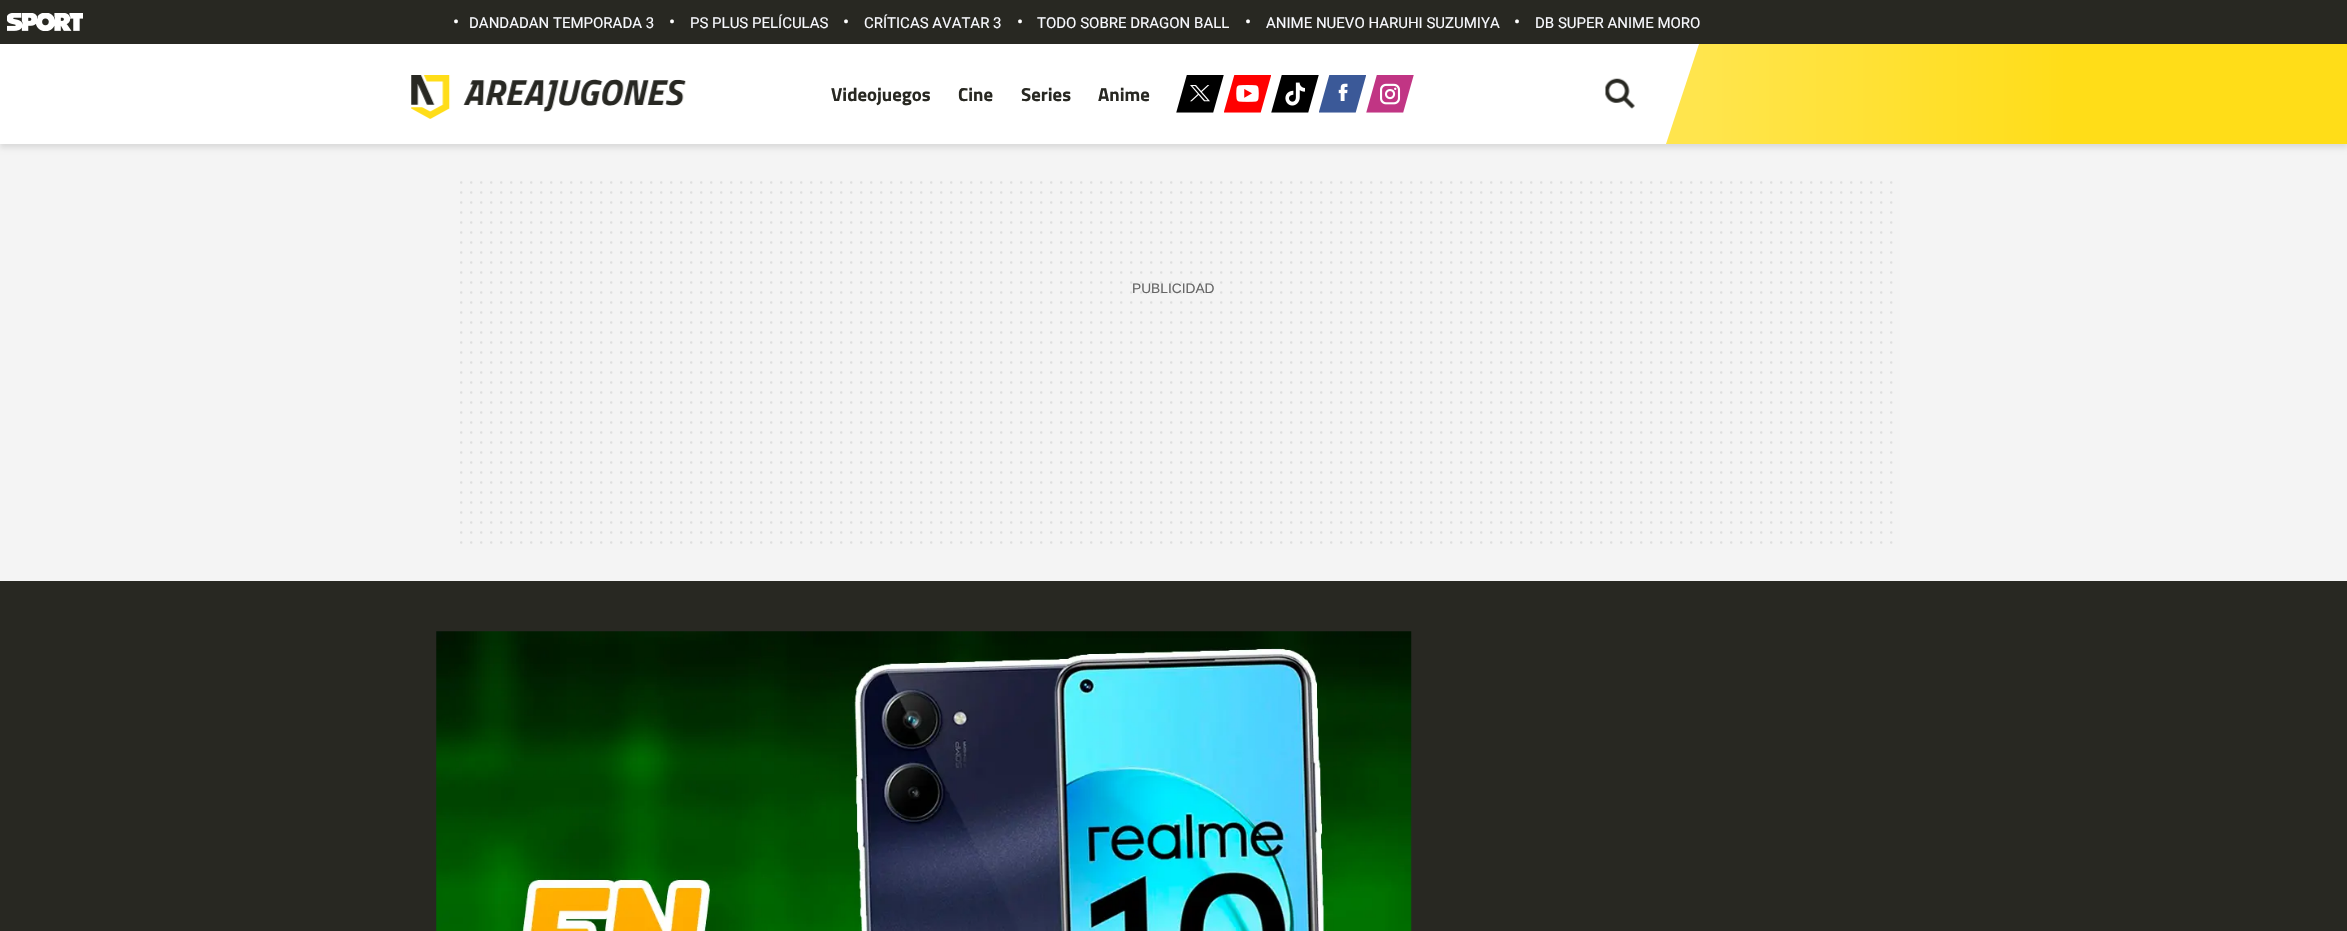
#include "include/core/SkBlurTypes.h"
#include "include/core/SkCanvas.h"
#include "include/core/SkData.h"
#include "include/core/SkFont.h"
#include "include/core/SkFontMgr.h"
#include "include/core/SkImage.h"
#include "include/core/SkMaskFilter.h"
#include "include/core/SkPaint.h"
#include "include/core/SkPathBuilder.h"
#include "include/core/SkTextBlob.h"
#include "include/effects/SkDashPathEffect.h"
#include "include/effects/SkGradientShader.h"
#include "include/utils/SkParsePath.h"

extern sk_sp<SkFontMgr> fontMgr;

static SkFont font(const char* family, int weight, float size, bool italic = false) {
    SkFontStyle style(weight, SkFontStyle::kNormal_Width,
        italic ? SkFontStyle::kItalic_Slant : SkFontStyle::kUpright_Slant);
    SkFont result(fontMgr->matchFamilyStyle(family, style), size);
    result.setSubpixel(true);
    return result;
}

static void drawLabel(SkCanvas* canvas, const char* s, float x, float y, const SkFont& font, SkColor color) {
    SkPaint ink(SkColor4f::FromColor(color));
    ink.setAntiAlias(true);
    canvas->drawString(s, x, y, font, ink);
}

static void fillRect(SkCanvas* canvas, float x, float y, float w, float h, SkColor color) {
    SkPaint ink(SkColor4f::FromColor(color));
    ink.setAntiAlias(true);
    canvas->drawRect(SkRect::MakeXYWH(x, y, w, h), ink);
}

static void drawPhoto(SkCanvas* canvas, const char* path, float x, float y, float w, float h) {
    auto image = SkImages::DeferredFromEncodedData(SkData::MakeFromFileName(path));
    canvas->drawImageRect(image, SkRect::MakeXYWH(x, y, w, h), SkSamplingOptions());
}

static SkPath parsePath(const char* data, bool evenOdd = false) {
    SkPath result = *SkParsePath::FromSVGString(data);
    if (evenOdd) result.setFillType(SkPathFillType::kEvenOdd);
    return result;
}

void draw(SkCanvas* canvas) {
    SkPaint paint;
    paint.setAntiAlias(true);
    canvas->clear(0xFFF4F4F4);
    paint.setColor(0x1A000000);
    paint.setMaskFilter(SkMaskFilter::MakeBlur(kNormal_SkBlurStyle, 2.5f));
    canvas->drawRect(SkRect::MakeXYWH(0, 48, 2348, 100), paint);
    paint.setMaskFilter(nullptr);
    fillRect(canvas, 0, 0, 2347, 44, 0xFF282822);
    drawPhoto(canvas, "assets/img1.png", 7, 13, 76, 18);
    SkFont font1 = font("Roboto", 400, 18);
    drawLabel(canvas, "•", 453, 28, font1, 0xFFFFFFFF);
    SkFont font2 = font("Roboto", 400, 15);
    drawLabel(canvas, "DANDADAN TEMPORADA 3", 469, 28, font2, 0xFFF8F9FE);
    drawLabel(canvas, "•", 669, 28, font1, 0xFFFFFFFF);
    drawLabel(canvas, "PS PLUS PELÍCULAS", 690, 28, font2, 0xFFF8F9FE);
    drawLabel(canvas, "•", 843, 28, font1, 0xFFFFFFFF);
    drawLabel(canvas, "CRÍTICAS AVATAR 3", 864, 28, font2, 0xFFF8F9FE);
    drawLabel(canvas, "•", 1017, 28, font1, 0xFFFFFFFF);
    drawLabel(canvas, "TODO SOBRE DRAGON BALL", 1037, 28, font2, 0xFFF8F9FE);
    drawLabel(canvas, "•", 1245, 28, font1, 0xFFFFFFFF);
    drawLabel(canvas, "ANIME NUEVO HARUHI SUZUMIYA", 1266, 28, font2, 0xFFF8F9FE);
    drawLabel(canvas, "•", 1514, 28, font1, 0xFFFFFFFF);
    drawLabel(canvas, "DB SUPER ANIME MORO", 1535, 28, font2, 0xFFF8F9FE);
    fillRect(canvas, 0, 44, 1688, 100, 0xFFFFFFFF);
    drawPhoto(canvas, "assets/img2.png", 411, 75, 275, 44);
    SkFont font3 = font("Titillium Web", 700, 18.75f);
    drawLabel(canvas, "Videojuegos", 831, 101, font3, 0xFF282822);
    drawLabel(canvas, "Cine", 958, 101, font3, 0xFF282822);
    drawLabel(canvas, "Series", 1021, 101, font3, 0xFF282822);
    drawLabel(canvas, "Anime", 1098, 101, font3, 0xFF282822);
    drawPhoto(canvas, "assets/img3.png", 1176, 75, 48, 38);
    drawPhoto(canvas, "assets/img4.png", 1224, 75, 47, 38);
    drawPhoto(canvas, "assets/img5.png", 1271, 75, 48, 38);
    drawPhoto(canvas, "assets/img6.png", 1319, 75, 47, 38);
    drawPhoto(canvas, "assets/img7.png", 1366, 75, 48, 38);
    drawPhoto(canvas, "assets/img8.png", 1605, 78, 30, 31);
    canvas->save();
    canvas->clipRect(SkRect::MakeXYWH(1688, 44, 11, 100));
    paint.setColor(0xFFFFFFFF);
    canvas->drawPath(parsePath("M1686 144V44H1716Z"), paint);
    canvas->restore();
    paint.setColor(0xFFFFE54D);
    canvas->drawPath(parsePath("M1699 144H1666L1699 44Z"), paint);
    {
        const SkColor colors[] = {0xFFFFE54D, 0xFFFFDD18};
        const float stops[] = {0, 0.3f};
        const SkPoint ends[] = {{1699, 94}, {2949, 94}};
        paint.setShader(SkGradientShader::MakeLinear(ends, colors, stops, 2, SkTileMode::kClamp));
        paint.setAlpha(255);
    }
    canvas->drawRect(SkRect::MakeXYWH(1699, 44, 648, 100), paint);
    paint.setStroke(true);
    paint.setStrokeWidth(2.5f);
    paint.setStrokeCap(SkPaint::kRound_Cap);
    paint.setShader(nullptr);
    paint.setColor(0xFFDFDFDF);
    paint.setPathEffect(SkDashPathEffect::Make({{0, 10}}, 0));
    canvas->drawPath(parsePath("M461.2 182.5H1891.5"), paint);
    paint.setPathEffect(nullptr);
    paint.setPathEffect(SkDashPathEffect::Make({{0, 10}}, 0));
    canvas->drawPath(parsePath("M461.2 192.5H1891.5"), paint);
    paint.setPathEffect(nullptr);
    paint.setPathEffect(SkDashPathEffect::Make({{0, 10}}, 0));
    canvas->drawPath(parsePath("M461.2 202.5H1891.5"), paint);
    paint.setPathEffect(nullptr);
    paint.setPathEffect(SkDashPathEffect::Make({{0, 10}}, 0));
    canvas->drawPath(parsePath("M461.2 212.5H1891.5"), paint);
    paint.setPathEffect(nullptr);
    paint.setPathEffect(SkDashPathEffect::Make({{0, 10}}, 0));
    canvas->drawPath(parsePath("M461.2 222.5H1891.5"), paint);
    paint.setPathEffect(nullptr);
    paint.setPathEffect(SkDashPathEffect::Make({{0, 10}}, 0));
    canvas->drawPath(parsePath("M461.2 232.5H1891.5"), paint);
    paint.setPathEffect(nullptr);
    paint.setPathEffect(SkDashPathEffect::Make({{0, 10}}, 0));
    canvas->drawPath(parsePath("M461.2 242.5H1891.5"), paint);
    paint.setPathEffect(nullptr);
    paint.setPathEffect(SkDashPathEffect::Make({{0, 10}}, 0));
    canvas->drawPath(parsePath("M461.2 252.5H1891.5"), paint);
    paint.setPathEffect(nullptr);
    paint.setPathEffect(SkDashPathEffect::Make({{0, 10}}, 0));
    canvas->drawPath(parsePath("M461.2 262.5H1891.5"), paint);
    paint.setPathEffect(nullptr);
    paint.setPathEffect(SkDashPathEffect::Make({{0, 10}}, 0));
    canvas->drawPath(parsePath("M461.2 272.5H1891.5"), paint);
    paint.setPathEffect(nullptr);
    paint.setPathEffect(SkDashPathEffect::Make({{0, 10}}, 0));
    canvas->drawPath(parsePath("M461.2 282.5H1891.5"), paint);
    paint.setPathEffect(nullptr);
    paint.setPathEffect(SkDashPathEffect::Make({{0, 10}}, 0));
    canvas->drawPath(parsePath("M461.2 292.5H1891.5"), paint);
    paint.setPathEffect(nullptr);
    paint.setPathEffect(SkDashPathEffect::Make({{0, 10}}, 0));
    canvas->drawPath(parsePath("M461.2 302.5H1891.5"), paint);
    paint.setPathEffect(nullptr);
    paint.setPathEffect(SkDashPathEffect::Make({{0, 10}}, 0));
    canvas->drawPath(parsePath("M461.2 312.5H1891.5"), paint);
    paint.setPathEffect(nullptr);
    paint.setPathEffect(SkDashPathEffect::Make({{0, 10}}, 0));
    canvas->drawPath(parsePath("M461.2 322.5H1891.5"), paint);
    paint.setPathEffect(nullptr);
    paint.setPathEffect(SkDashPathEffect::Make({{0, 10}}, 0));
    canvas->drawPath(parsePath("M461.2 332.5H1891.5"), paint);
    paint.setPathEffect(nullptr);
    paint.setPathEffect(SkDashPathEffect::Make({{0, 10}}, 0));
    canvas->drawPath(parsePath("M461.2 342.5H1891.5"), paint);
    paint.setPathEffect(nullptr);
    paint.setPathEffect(SkDashPathEffect::Make({{0, 10}}, 0));
    canvas->drawPath(parsePath("M461.2 352.5H1891.5"), paint);
    paint.setPathEffect(nullptr);
    paint.setPathEffect(SkDashPathEffect::Make({{0, 10}}, 0));
    canvas->drawPath(parsePath("M461.2 362.5H1891.5"), paint);
    paint.setPathEffect(nullptr);
    paint.setPathEffect(SkDashPathEffect::Make({{0, 10}}, 0));
    canvas->drawPath(parsePath("M461.2 372.5H1891.5"), paint);
    paint.setPathEffect(nullptr);
    paint.setPathEffect(SkDashPathEffect::Make({{0, 10}}, 0));
    canvas->drawPath(parsePath("M461.2 382.5H1891.5"), paint);
    paint.setPathEffect(nullptr);
    paint.setPathEffect(SkDashPathEffect::Make({{0, 10}}, 0));
    canvas->drawPath(parsePath("M461.2 392.5H1891.5"), paint);
    paint.setPathEffect(nullptr);
    paint.setPathEffect(SkDashPathEffect::Make({{0, 10}}, 0));
    canvas->drawPath(parsePath("M461.2 402.5H1891.5"), paint);
    paint.setPathEffect(nullptr);
    paint.setPathEffect(SkDashPathEffect::Make({{0, 10}}, 0));
    canvas->drawPath(parsePath("M461.2 412.5H1891.5"), paint);
    paint.setPathEffect(nullptr);
    paint.setPathEffect(SkDashPathEffect::Make({{0, 10}}, 0));
    canvas->drawPath(parsePath("M461.2 422.5H1891.5"), paint);
    paint.setPathEffect(nullptr);
    paint.setPathEffect(SkDashPathEffect::Make({{0, 10}}, 0));
    canvas->drawPath(parsePath("M461.2 432.5H1891.5"), paint);
    paint.setPathEffect(nullptr);
    paint.setPathEffect(SkDashPathEffect::Make({{0, 10}}, 0));
    canvas->drawPath(parsePath("M461.2 442.5H1891.5"), paint);
    paint.setPathEffect(nullptr);
    paint.setPathEffect(SkDashPathEffect::Make({{0, 10}}, 0));
    canvas->drawPath(parsePath("M461.2 452.5H1891.5"), paint);
    paint.setPathEffect(nullptr);
    paint.setPathEffect(SkDashPathEffect::Make({{0, 10}}, 0));
    canvas->drawPath(parsePath("M461.2 462.5H1891.5"), paint);
    paint.setPathEffect(nullptr);
    paint.setPathEffect(SkDashPathEffect::Make({{0, 10}}, 0));
    canvas->drawPath(parsePath("M461.2 472.5H1891.5"), paint);
    paint.setPathEffect(nullptr);
    paint.setPathEffect(SkDashPathEffect::Make({{0, 10}}, 0));
    canvas->drawPath(parsePath("M461.2 482.5H1891.5"), paint);
    paint.setPathEffect(nullptr);
    paint.setPathEffect(SkDashPathEffect::Make({{0, 10}}, 0));
    canvas->drawPath(parsePath("M461.2 492.5H1891.5"), paint);
    paint.setPathEffect(nullptr);
    paint.setPathEffect(SkDashPathEffect::Make({{0, 10}}, 0));
    canvas->drawPath(parsePath("M461.2 502.5H1891.5"), paint);
    paint.setPathEffect(nullptr);
    paint.setPathEffect(SkDashPathEffect::Make({{0, 10}}, 0));
    canvas->drawPath(parsePath("M461.2 512.5H1891.5"), paint);
    paint.setPathEffect(nullptr);
    paint.setPathEffect(SkDashPathEffect::Make({{0, 10}}, 0));
    canvas->drawPath(parsePath("M461.2 522.5H1891.5"), paint);
    paint.setPathEffect(nullptr);
    paint.setPathEffect(SkDashPathEffect::Make({{0, 10}}, 0));
    canvas->drawPath(parsePath("M461.2 532.5H1891.5"), paint);
    paint.setPathEffect(nullptr);
    paint.setPathEffect(SkDashPathEffect::Make({{0, 10}}, 0));
    canvas->drawPath(parsePath("M461.2 542.5H1891.5"), paint);
    paint.setPathEffect(nullptr);
    SkFont font4 = font("Liberation Sans", 400, 13.75f);
    drawLabel(canvas, "PUBLICIDAD", 1132, 293, font4, 0xFF666666);
    fillRect(canvas, 0, 581, 2347, 350, 0xFF282822);
    drawPhoto(canvas, "assets/img9.png", 436, 631, 976, 300);
}
